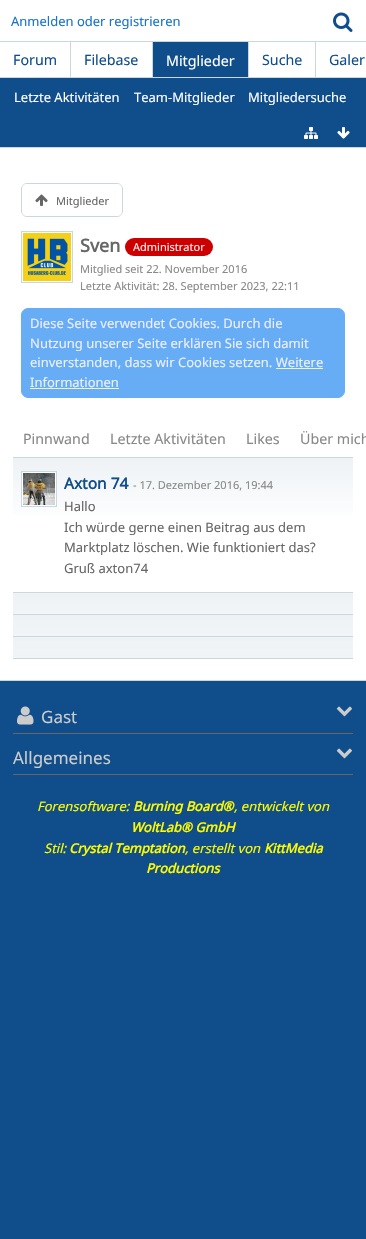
#include "include/core/SkBlurTypes.h"
#include "include/core/SkCanvas.h"
#include "include/core/SkData.h"
#include "include/core/SkFont.h"
#include "include/core/SkFontMgr.h"
#include "include/core/SkImage.h"
#include "include/core/SkMaskFilter.h"
#include "include/core/SkPaint.h"
#include "include/core/SkPathBuilder.h"
#include "include/core/SkTextBlob.h"
#include "include/effects/SkDashPathEffect.h"
#include "include/effects/SkGradientShader.h"
#include "include/utils/SkParsePath.h"

extern sk_sp<SkFontMgr> fontMgr;

static SkFont font(const char* family, int weight, float size, bool italic = false) {
    SkFontStyle style(weight, SkFontStyle::kNormal_Width,
        italic ? SkFontStyle::kItalic_Slant : SkFontStyle::kUpright_Slant);
    SkFont result(fontMgr->matchFamilyStyle(family, style), size);
    result.setSubpixel(true);
    return result;
}

static void drawLabel(SkCanvas* canvas, const char* s, float x, float y, const SkFont& font, SkColor color) {
    SkPaint ink(SkColor4f::FromColor(color));
    ink.setAntiAlias(true);
    canvas->drawString(s, x, y, font, ink);
}

static void fillRect(SkCanvas* canvas, float x, float y, float w, float h, SkColor color) {
    SkPaint ink(SkColor4f::FromColor(color));
    ink.setAntiAlias(true);
    canvas->drawRect(SkRect::MakeXYWH(x, y, w, h), ink);
}

static void fillRRect(SkCanvas* canvas, float x, float y, float w, float h, float radius, SkColor color) {
    SkPaint ink(SkColor4f::FromColor(color));
    ink.setAntiAlias(true);
    canvas->drawRoundRect(SkRect::MakeXYWH(x, y, w, h), radius, radius, ink);
}

static void drawPhoto(SkCanvas* canvas, const char* path, float x, float y, float w, float h) {
    auto image = SkImages::DeferredFromEncodedData(SkData::MakeFromFileName(path));
    canvas->drawImageRect(image, SkRect::MakeXYWH(x, y, w, h), SkSamplingOptions());
}

void draw(SkCanvas* canvas) {
    SkPaint paint;
    paint.setAntiAlias(true);
    canvas->clear(0xFF104E8B);
    fillRect(canvas, 0, 0, 366, 41, 0xFFFFFFFF);
    fillRect(canvas, 0, 42, 366, 35, 0xFFFFFFFF);
    fillRect(canvas, 70, 41, 1, 36, 0xFFC9D7DE);
    fillRect(canvas, 152, 41, 1, 36, 0xFFC9D7DE);
    fillRect(canvas, 315, 41, 1, 36, 0xFFC9D7DE);
    fillRect(canvas, 0, 41, 366, 1, 0xFFC9D7DE);
    SkFont font1 = font("Noto Sans", 400, 13);
    drawLabel(canvas, "Anmelden oder registrieren", 11, 26, font1, 0xFF1874CD);
    drawPhoto(canvas, "assets/img1.png", 333, 12, 20, 20);
    SkFont font2 = font("Noto Sans", 400, 14.25f);
    drawLabel(canvas, "Forum", 13, 65, font2, 0xFF104E8B);
    drawLabel(canvas, "Filebase", 84, 65, font2, 0xFF104E8B);
    fillRect(canvas, 153, 42, 95, 35, 0xFF104E8B);
    fillRect(canvas, 248, 42, 1, 36, 0xFFC9D7DE);
    drawLabel(canvas, "Mitglieder", 166, 66, font2, 0xFFFFFFFF);
    drawLabel(canvas, "Suche", 262, 65, font2, 0xFF104E8B);
    drawLabel(canvas, "Galer", 329, 65, font2, 0xFF104E8B);
    fillRect(canvas, 0, 77, 366, 1, 0xFFC9D7DE);
    fillRect(canvas, 0, 147, 366, 1, 0xFFC9D7DE);
    drawLabel(canvas, "Letzte Aktivitäten", 14, 102, font1, 0xFFFFFFFF);
    drawLabel(canvas, "Team-Mitglieder", 134, 102, font1, 0xFFFFFFFF);
    drawLabel(canvas, "Mitgliedersuche", 248, 102, font1, 0xFFFFFFFF);
    drawPhoto(canvas, "assets/img2.png", 304, 127, 14, 12);
    drawPhoto(canvas, "assets/img3.png", 337, 127, 13, 12);
    fillRect(canvas, 0, 148, 366, 532, 0xFFFFFFFF);
    paint.setStroke(true);
    paint.setStrokeWidth(1);
    paint.setColor(0xFFC9D7DE);
    canvas->drawRoundRect(SkRect::MakeXYWH(21.5f, 183.5f, 101, 33), 5.5f, 5.5f, paint);
    fillRRect(canvas, 22, 184, 100, 32, 5, 0xFFFFFFFF);
    drawPhoto(canvas, "assets/img4.png", 35, 194, 13, 12);
    SkFont font3 = font("Noto Sans", 400, 11);
    drawLabel(canvas, "Mitglieder", 56, 205, font3, 0xFF666666);
    canvas->drawRect(SkRect::MakeXYWH(21.5f, 231.5f, 51, 51), paint);
    drawPhoto(canvas, "assets/img5.png", 23, 233, 48, 48);
    SkFont font4 = font("Noto Sans", 700, 18);
    drawLabel(canvas, "Sven", 80, 252, font4, 0xFF666666);
    fillRRect(canvas, 125, 238, 88, 18, 9, 0xFFCC0000);
    drawLabel(canvas, "Administrator", 133, 251, font3, 0xFFFFEEEE);
    drawLabel(canvas, "Mitglied seit 22. November 2016", 80, 273, font3, 0xFF888888);
    drawLabel(canvas, "Letzte Aktivität: 28. September 2023, 22:11", 80, 290, font3, 0xFF888888);
    paint.setStroke(false);
    paint.setColor(0xFF66ADF5);
    canvas->drawRoundRect(SkRect::MakeXYWH(21.5f, 308.5f, 323, 89), 6.5f, 6.5f, paint);
    paint.setStroke(true);
    canvas->drawRoundRect(SkRect::MakeXYWH(21.5f, 308.5f, 323, 89), 6.5f, 6.5f, paint);
    drawLabel(canvas, "Diese Seite verwendet Cookies. Durch die", 30, 328, font1, 0xFFEEEEFF);
    drawLabel(canvas, "Nutzung unserer Seite erklären Sie sich damit", 30, 348, font1, 0xFFEEEEFF);
    drawLabel(canvas, "einverstanden, dass wir Cookies setzen. Weitere", 30, 367, font1, 0xFFEEEEFF);
    drawLabel(canvas, "Informationen", 30, 387, font1, 0xFFEEEEFF);
    fillRect(canvas, 276, 368, 47, 1, 0xFFEEEEFF);
    fillRect(canvas, 30, 388, 89, 1, 0xFFEEEEFF);
    drawLabel(canvas, "Pinnwand", 23, 444, font2, 0xFF888888);
    drawLabel(canvas, "Letzte Aktivitäten", 110, 444, font2, 0xFF888888);
    drawLabel(canvas, "Likes", 246, 444, font2, 0xFF888888);
    drawLabel(canvas, "Über mich", 300, 444, font2, 0xFF888888);
    fillRect(canvas, 13, 457, 340, 1, 0xFFC9D7DE);
    paint.setStroke(false);
    {
        const SkColor colors[] = {0xFFEEF2F5, 0xFFFFFFFF};
        const float stops[] = {0, 0.5f};
        const SkPoint ends[] = {{183, 458}, {183, 592}};
        paint.setShader(SkGradientShader::MakeLinear(ends, colors, stops, 2, SkTileMode::kClamp));
        paint.setAlpha(255);
    }
    canvas->drawRect(SkRect::MakeXYWH(13, 458, 340, 57), paint);
    paint.setShader(nullptr);
    paint.setColor(0xFFFFFFFF);
    canvas->drawRect(SkRect::MakeXYWH(21.5f, 471.5f, 35, 35), paint);
    paint.setStroke(true);
    paint.setColor(0xFFC9D7DE);
    canvas->drawRect(SkRect::MakeXYWH(21.5f, 471.5f, 35, 35), paint);
    drawPhoto(canvas, "assets/img6.png", 23, 473, 32, 32);
    SkFont font5 = font("Noto Sans", 700, 15.5f);
    drawLabel(canvas, "Axton 74", 64, 489, font5, 0xFF104E8B);
    drawLabel(canvas, "- 17. Dezember 2016, 19:44", 133, 489, font3, 0xFF888888);
    drawLabel(canvas, "Hallo", 64, 511, font1, 0xFF666666);
    drawLabel(canvas, "Ich würde gerne einen Beitrag aus dem", 64, 532, font1, 0xFF666666);
    drawLabel(canvas, "Marktplatz löschen. Wie funktioniert das?", 64, 552, font1, 0xFF666666);
    drawLabel(canvas, "Gruß axton74", 64, 573, font1, 0xFF666666);
    paint.setStroke(false);
    {
        const SkColor colors[] = {0xFFEEF2F5, 0xFFFFFFFF};
        const float stops[] = {0, 1};
        const SkPoint ends[] = {{183, 593}, {183, 693}};
        paint.setShader(SkGradientShader::MakeLinear(ends, colors, stops, 2, SkTileMode::kClamp));
        paint.setAlpha(255);
    }
    canvas->drawRect(SkRect::MakeXYWH(13, 593, 340, 21), paint);
    fillRect(canvas, 13, 592, 340, 1, 0xFFC9D7DE);
    {
        const SkColor colors[] = {0xFFEEF2F5, 0xFFFFFFFF};
        const float stops[] = {0, 1};
        const SkPoint ends[] = {{183, 615}, {183, 715}};
        paint.setShader(SkGradientShader::MakeLinear(ends, colors, stops, 2, SkTileMode::kClamp));
        paint.setAlpha(255);
    }
    canvas->drawRect(SkRect::MakeXYWH(13, 615, 340, 21), paint);
    fillRect(canvas, 13, 614, 340, 1, 0xFFC9D7DE);
    {
        const SkColor colors[] = {0xFFEEF2F5, 0xFFFFFFFF};
        const float stops[] = {0, 1};
        const SkPoint ends[] = {{183, 637}, {183, 737}};
        paint.setShader(SkGradientShader::MakeLinear(ends, colors, stops, 2, SkTileMode::kClamp));
        paint.setAlpha(255);
    }
    canvas->drawRect(SkRect::MakeXYWH(13, 637, 340, 21), paint);
    fillRect(canvas, 13, 636, 340, 1, 0xFFC9D7DE);
    fillRect(canvas, 13, 658, 340, 1, 0xFFC9D7DE);
    fillRect(canvas, 0, 680, 366, 1, 0xFFC9D7DE);
    fillRect(canvas, 13, 733, 340, 1, 0xFF666666);
    drawPhoto(canvas, "assets/img7.png", 17, 706, 17, 19);
    SkFont font6 = font("Noto Sans", 400, 17);
    drawLabel(canvas, "Gast", 41, 723, font6, 0xFFCCCCCC);
    drawPhoto(canvas, "assets/img8.png", 336, 706, 16, 11);
    fillRect(canvas, 13, 774, 340, 1, 0xFF666666);
    drawLabel(canvas, "Allgemeines", 13, 764, font6, 0xFFCCCCCC);
    drawPhoto(canvas, "assets/img8.png", 336, 748, 16, 11);
    SkFont font7 = font("Noto Sans", 400, 13, true);
    drawLabel(canvas, "Forensoftware:", 37, 811, font7, 0xFFFFFB00);
    SkFont font8 = font("Noto Sans", 700, 13, true);
    drawLabel(canvas, "Burning Board®", 133, 811, font8, 0xFFFFFB00);
    drawLabel(canvas, ", entwickelt von", 234, 811, font7, 0xFFFFFB00);
    drawLabel(canvas, "WoltLab® GmbH", 131, 832, font8, 0xFFFFFB00);
    drawLabel(canvas, "Stil:", 44, 853, font7, 0xFFFFFB00);
    drawLabel(canvas, "Crystal Temptation", 69, 853, font8, 0xFFFFFB00);
    drawLabel(canvas, ", erstellt von", 185, 853, font7, 0xFFFFFB00);
    drawLabel(canvas, "KittMedia", 264, 853, font8, 0xFFFFFB00);
    drawLabel(canvas, "Productions", 146, 873, font8, 0xFFFFFB00);
}
